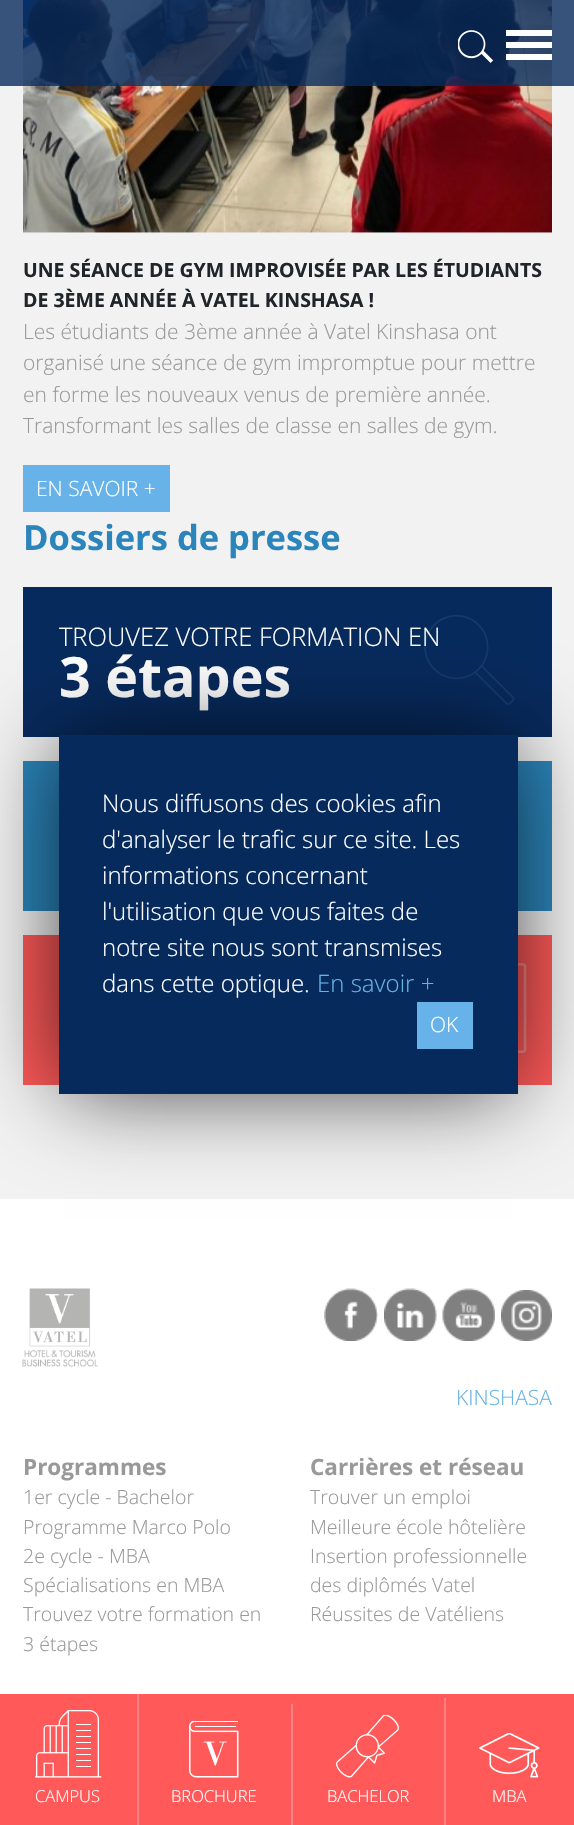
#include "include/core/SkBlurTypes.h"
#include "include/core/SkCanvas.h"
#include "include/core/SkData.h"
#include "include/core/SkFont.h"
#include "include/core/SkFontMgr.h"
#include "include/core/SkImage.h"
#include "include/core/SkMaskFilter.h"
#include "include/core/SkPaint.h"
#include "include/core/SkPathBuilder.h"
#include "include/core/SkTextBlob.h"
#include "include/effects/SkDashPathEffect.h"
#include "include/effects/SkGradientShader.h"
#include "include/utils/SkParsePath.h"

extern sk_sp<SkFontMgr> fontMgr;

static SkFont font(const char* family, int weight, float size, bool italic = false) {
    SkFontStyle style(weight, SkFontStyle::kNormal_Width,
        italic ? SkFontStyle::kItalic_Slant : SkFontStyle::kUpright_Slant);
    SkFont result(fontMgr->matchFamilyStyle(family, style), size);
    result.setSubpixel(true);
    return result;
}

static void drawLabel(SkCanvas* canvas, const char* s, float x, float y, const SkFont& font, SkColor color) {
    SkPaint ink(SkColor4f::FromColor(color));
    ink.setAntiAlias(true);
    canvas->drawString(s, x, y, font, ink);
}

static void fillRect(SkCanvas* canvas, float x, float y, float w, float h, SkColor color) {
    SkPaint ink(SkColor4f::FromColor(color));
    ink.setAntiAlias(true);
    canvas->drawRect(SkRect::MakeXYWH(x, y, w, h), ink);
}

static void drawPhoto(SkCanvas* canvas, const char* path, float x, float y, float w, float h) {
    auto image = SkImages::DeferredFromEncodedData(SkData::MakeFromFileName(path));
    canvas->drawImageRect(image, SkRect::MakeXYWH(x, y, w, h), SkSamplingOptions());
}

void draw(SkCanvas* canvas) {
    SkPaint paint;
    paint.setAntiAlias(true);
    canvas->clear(0xFFFFFFFF);
    fillRect(canvas, 0, 0, 574, 1199, 0xFFF2F2F2);
    drawPhoto(canvas, "assets/img2.png", 23, 0, 529, 233);
    fillRect(canvas, 0, 0, 574, 86, 0xCC072A5D);
    drawPhoto(canvas, "assets/img1.png", 458, 30, 35, 33);
    fillRect(canvas, 506, 54, 46, 6, 0xFFFFFFFF);
    fillRect(canvas, 506, 42, 46, 6, 0xFFFFFFFF);
    fillRect(canvas, 506, 30, 46, 6, 0xFFFFFFFF);
    SkFont font1 = font("Open Sans", 700, 19.5f);
    drawLabel(canvas, "UNE SÉANCE DE GYM IMPROVISÉE PAR LES ÉTUDIANTS", 23, 277, font1, 0xFF212529);
    drawLabel(canvas, "DE 3ÈME ANNÉE À VATEL KINSHASA !", 23, 307, font1, 0xFF212529);
    SkFont font2 = font("Open Sans", 300, 21);
    drawLabel(canvas, "Les étudiants de 3ème année à Vatel Kinshasa ont", 23, 339, font2, 0xFF999999);
    drawLabel(canvas, "organisé une séance de gym impromptue pour mettre", 23, 370, font2, 0xFF999999);
    drawLabel(canvas, "en forme les nouveaux venus de première année.", 23, 402, font2, 0xFF999999);
    drawLabel(canvas, "Transformant les salles de classe en salles de gym.", 23, 433, font2, 0xFF999999);
    fillRect(canvas, 23, 465, 147, 47, 0xFF67B2E8);
    drawLabel(canvas, "EN SAVOIR +", 36, 496, font2, 0xFFFFFFFF);
    SkFont font3 = font("Open Sans", 700, 34.5f);
    drawLabel(canvas, "Dossiers de presse", 23, 550, font3, 0xFF2B85BB);
    fillRect(canvas, 23, 587, 529, 150, 0xFF072A5D);
    drawPhoto(canvas, "assets/img3.png", 424, 615, 91, 90);
    SkFont font4 = font("Open Sans", 300, 25.5f);
    drawLabel(canvas, "TROUVEZ VOTRE FORMATION EN", 59, 646, font4, 0xFFFFFFFF);
    SkFont font5 = font("Open Sans", 700, 55.5f);
    drawLabel(canvas, "3 étapes", 59, 697, font5, 0xFFFFFFFF);
    fillRect(canvas, 23, 761, 529, 150, 0xFF2B85BB);
    fillRect(canvas, 23, 935, 529, 150, 0xFFFF5959);
    drawPhoto(canvas, "assets/img4.png", 518, 963, 9, 90);
    paint.setColor(0xBF000000);
    paint.setMaskFilter(SkMaskFilter::MakeBlur(kNormal_SkBlurStyle, 43.5f));
    canvas->drawRect(SkRect::MakeXYWH(63, 740, 450, 349), paint);
    paint.setMaskFilter(nullptr);
    fillRect(canvas, 59, 735, 459, 359, 0xFF072A5D);
    SkFont font6 = font("Open Sans", 300, 24);
    drawLabel(canvas, "Nous diffusons des cookies afin", 102, 812, font6, 0xFFFFFFFF);
    drawLabel(canvas, "d'analyser le trafic sur ce site. Les", 102, 848, font6, 0xFFFFFFFF);
    drawLabel(canvas, "informations concernant", 102, 884, font6, 0xFFFFFFFF);
    drawLabel(canvas, "l'utilisation que vous faites de", 102, 920, font6, 0xFFFFFFFF);
    drawLabel(canvas, "notre site nous sont transmises", 102, 956, font6, 0xFFFFFFFF);
    drawLabel(canvas, "dans cette optique.", 102, 992, font6, 0xFFFFFFFF);
    drawLabel(canvas, "En savoir +", 317, 992, font6, 0xFF67B2E8);
    fillRect(canvas, 417, 1002, 56, 47, 0xFF67B2E8);
    drawLabel(canvas, "OK", 430, 1032, font2, 0xFFFFFFFF);
    drawPhoto(canvas, "assets/img5.png", 22, 1288, 76, 79);
    drawPhoto(canvas, "assets/img6.png", 324, 1288, 54, 53);
    drawPhoto(canvas, "assets/img7.png", 384, 1288, 53, 53);
    drawPhoto(canvas, "assets/img8.png", 442, 1288, 53, 53);
    drawPhoto(canvas, "assets/img9.png", 501, 1290, 51, 51);
    drawLabel(canvas, "KINSHASA", 456, 1405, font2, 0xFF67B2E8);
    SkFont font7 = font("Open Sans", 700, 22.5f);
    drawLabel(canvas, "Programmes", 23, 1475, font7, 0xFF999999);
    SkFont font8 = font("Open Sans", 300, 19.5f);
    drawLabel(canvas, "1er cycle - Bachelor", 23, 1504, font8, 0xFF999999);
    drawLabel(canvas, "Programme Marco Polo", 23, 1534, font8, 0xFF999999);
    drawLabel(canvas, "2e cycle - MBA", 23, 1563, font8, 0xFF999999);
    drawLabel(canvas, "Spécialisations en MBA", 23, 1592, font8, 0xFF999999);
    drawLabel(canvas, "Trouvez votre formation en", 23, 1621, font8, 0xFF999999);
    drawLabel(canvas, "3 étapes", 23, 1651, font8, 0xFF999999);
    drawLabel(canvas, "Carrières et réseau", 310, 1475, font7, 0xFF999999);
    drawLabel(canvas, "Trouver un emploi", 310, 1504, font8, 0xFF999999);
    drawLabel(canvas, "Meilleure école hôtelière", 310, 1534, font8, 0xFF999999);
    drawLabel(canvas, "Insertion professionnelle", 310, 1563, font8, 0xFF999999);
    drawLabel(canvas, "des diplômés Vatel", 310, 1592, font8, 0xFF999999);
    drawLabel(canvas, "Réussites de Vatéliens", 310, 1621, font8, 0xFF999999);
    fillRect(canvas, 0, 1694, 574, 131, 0xFFFF5959);
    fillRect(canvas, 137, 1694, 2, 131, 0xFFFF8082);
    drawPhoto(canvas, "assets/img10.png", 35, 1710, 67, 68);
    SkFont font9 = font("Open Sans", 300, 16.5f);
    drawLabel(canvas, "CAMPUS", 35, 1802, font9, 0xFFFFFFFF);
    fillRect(canvas, 291, 1704, 2, 121, 0xFFFF8082);
    drawPhoto(canvas, "assets/img11.png", 189, 1721, 50, 57);
    drawLabel(canvas, "BROCHURE", 171, 1802, font9, 0xFFFFFFFF);
    fillRect(canvas, 444, 1698, 2, 127, 0xFFFF8082);
    drawPhoto(canvas, "assets/img12.png", 336, 1715, 63, 63);
    drawLabel(canvas, "BACHELOR", 327, 1802, font9, 0xFFFFFFFF);
    drawPhoto(canvas, "assets/img13.png", 479, 1733, 61, 45);
    drawLabel(canvas, "MBA", 492, 1802, font9, 0xFFFFFFFF);
}
